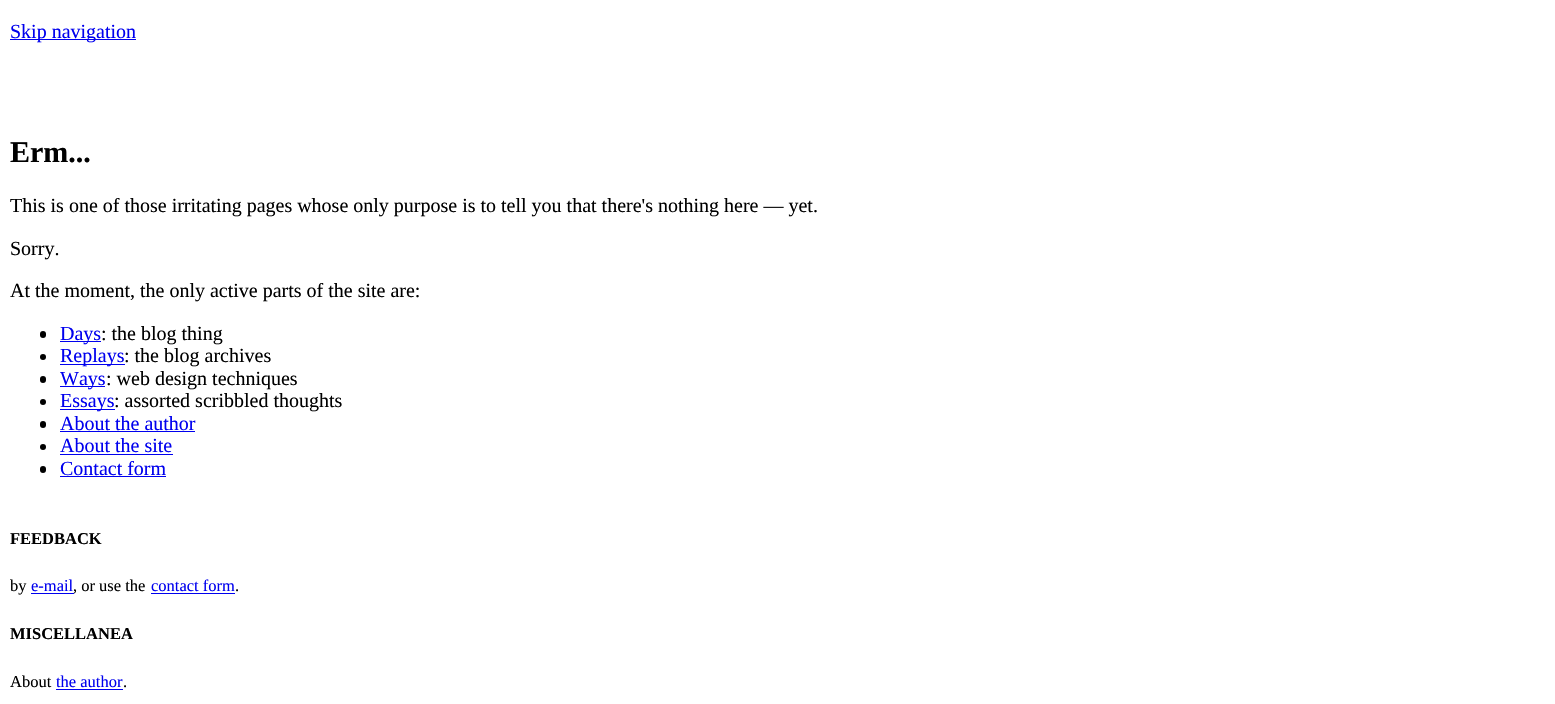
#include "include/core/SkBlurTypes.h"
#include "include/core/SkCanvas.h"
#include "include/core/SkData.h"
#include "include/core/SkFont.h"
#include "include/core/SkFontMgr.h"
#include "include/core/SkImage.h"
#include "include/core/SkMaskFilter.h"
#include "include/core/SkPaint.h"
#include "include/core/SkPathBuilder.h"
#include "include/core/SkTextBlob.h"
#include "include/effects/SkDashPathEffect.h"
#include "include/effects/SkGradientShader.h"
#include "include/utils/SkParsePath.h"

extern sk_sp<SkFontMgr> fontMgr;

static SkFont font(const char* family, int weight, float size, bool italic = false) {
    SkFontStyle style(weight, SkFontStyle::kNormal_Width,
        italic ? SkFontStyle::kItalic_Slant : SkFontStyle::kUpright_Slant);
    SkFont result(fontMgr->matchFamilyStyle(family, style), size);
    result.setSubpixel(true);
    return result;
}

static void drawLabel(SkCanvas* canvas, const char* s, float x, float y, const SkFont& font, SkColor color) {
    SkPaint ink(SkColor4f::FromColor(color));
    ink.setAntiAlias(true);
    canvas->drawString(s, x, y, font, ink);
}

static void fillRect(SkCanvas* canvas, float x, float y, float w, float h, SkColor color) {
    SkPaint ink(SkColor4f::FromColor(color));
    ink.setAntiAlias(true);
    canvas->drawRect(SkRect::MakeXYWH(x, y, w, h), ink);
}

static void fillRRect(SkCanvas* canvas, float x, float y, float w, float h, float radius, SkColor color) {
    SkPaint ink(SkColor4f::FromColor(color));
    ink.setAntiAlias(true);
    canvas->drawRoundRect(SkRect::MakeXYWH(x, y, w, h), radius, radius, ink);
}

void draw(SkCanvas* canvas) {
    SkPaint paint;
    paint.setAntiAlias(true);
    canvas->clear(0xFFFFFFFF);
    fillRect(canvas, 10, 39, 126, 1, 0xFF0000EE);
    SkFont font1 = font("Liberation Serif", 400, 20);
    drawLabel(canvas, "Skip navigation", 10, 38, font1, 0xFF0000EE);
    SkFont font2 = font("Liberation Serif", 700, 30);
    drawLabel(canvas, "Erm...", 10, 162, font2, 0xFF000000);
    drawLabel(canvas, "This is one of those irritating pages whose only purpose is to tell you that there's nothing here — yet.", 10, 212, font1, 0xFF000000);
    drawLabel(canvas, "Sorry.", 10, 255, font1, 0xFF000000);
    drawLabel(canvas, "At the moment, the only active parts of the site are:", 10, 297, font1, 0xFF000000);
    fillRRect(canvas, 40, 331, 6, 7, 3, 0xFF000000);
    fillRect(canvas, 60, 341, 41, 1, 0xFF0000EE);
    drawLabel(canvas, "Days", 60, 340, font1, 0xFF0000EE);
    drawLabel(canvas, ": the blog thing", 101, 340, font1, 0xFF000000);
    paint.setColor(0xFF000000);
    canvas->drawCircle(43, 357, 3, paint);
    fillRect(canvas, 60, 364, 65, 1, 0xFF0000EE);
    drawLabel(canvas, "Replays", 60, 362, font1, 0xFF0000EE);
    drawLabel(canvas, ": the blog archives", 124, 362, font1, 0xFF000000);
    fillRRect(canvas, 40, 376, 6, 7, 3, 0xFF000000);
    fillRect(canvas, 60, 386, 45, 1, 0xFF0000EE);
    drawLabel(canvas, "Ways", 60, 385, font1, 0xFF0000EE);
    drawLabel(canvas, ": web design techniques", 106, 385, font1, 0xFF000000);
    canvas->drawCircle(43, 402, 3, paint);
    fillRect(canvas, 60, 409, 55, 1, 0xFF0000EE);
    drawLabel(canvas, "Essays", 60, 407, font1, 0xFF0000EE);
    drawLabel(canvas, ": assorted scribbled thoughts", 114, 407, font1, 0xFF000000);
    fillRRect(canvas, 40, 421, 6, 7, 3, 0xFF000000);
    drawLabel(canvas, "About the author", 60, 430, font1, 0xFF0000EE);
    fillRect(canvas, 60, 431, 135, 1, 0xFF0000EE);
    canvas->drawCircle(43, 447, 3, paint);
    drawLabel(canvas, "About the site", 60, 452, font1, 0xFF0000EE);
    fillRect(canvas, 60, 454, 113, 1, 0xFF0000EE);
    fillRRect(canvas, 40, 466, 6, 7, 3, 0xFF000000);
    drawLabel(canvas, "Contact form", 60, 475, font1, 0xFF0000EE);
    fillRect(canvas, 60, 476, 106, 1, 0xFF0000EE);
    SkFont font3 = font("Liberation Serif", 700, 16.5f);
    drawLabel(canvas, "FEEDBACK", 10, 544, font3, 0xFF000000);
    SkFont font4 = font("Liberation Serif", 400, 16.5f);
    drawLabel(canvas, "by", 10, 591, font4, 0xFF000000);
    drawLabel(canvas, "e-mail", 31, 591, font4, 0xFF0000EE);
    drawLabel(canvas, ", or use the", 73, 591, font4, 0xFF000000);
    fillRect(canvas, 31, 593, 43, 1, 0xFF0000EE);
    drawLabel(canvas, "contact form", 151, 591, font4, 0xFF0000EE);
    drawLabel(canvas, ".", 235, 591, font4, 0xFF000000);
    fillRect(canvas, 151, 593, 84, 1, 0xFF0000EE);
    drawLabel(canvas, "MISCELLANEA", 10, 639, font3, 0xFF000000);
    drawLabel(canvas, "About", 10, 687, font4, 0xFF000000);
    drawLabel(canvas, "the author", 56, 687, font4, 0xFF0000EE);
    drawLabel(canvas, ".", 123, 687, font4, 0xFF000000);
    fillRect(canvas, 56, 689, 67, 1, 0xFF0000EE);
}
